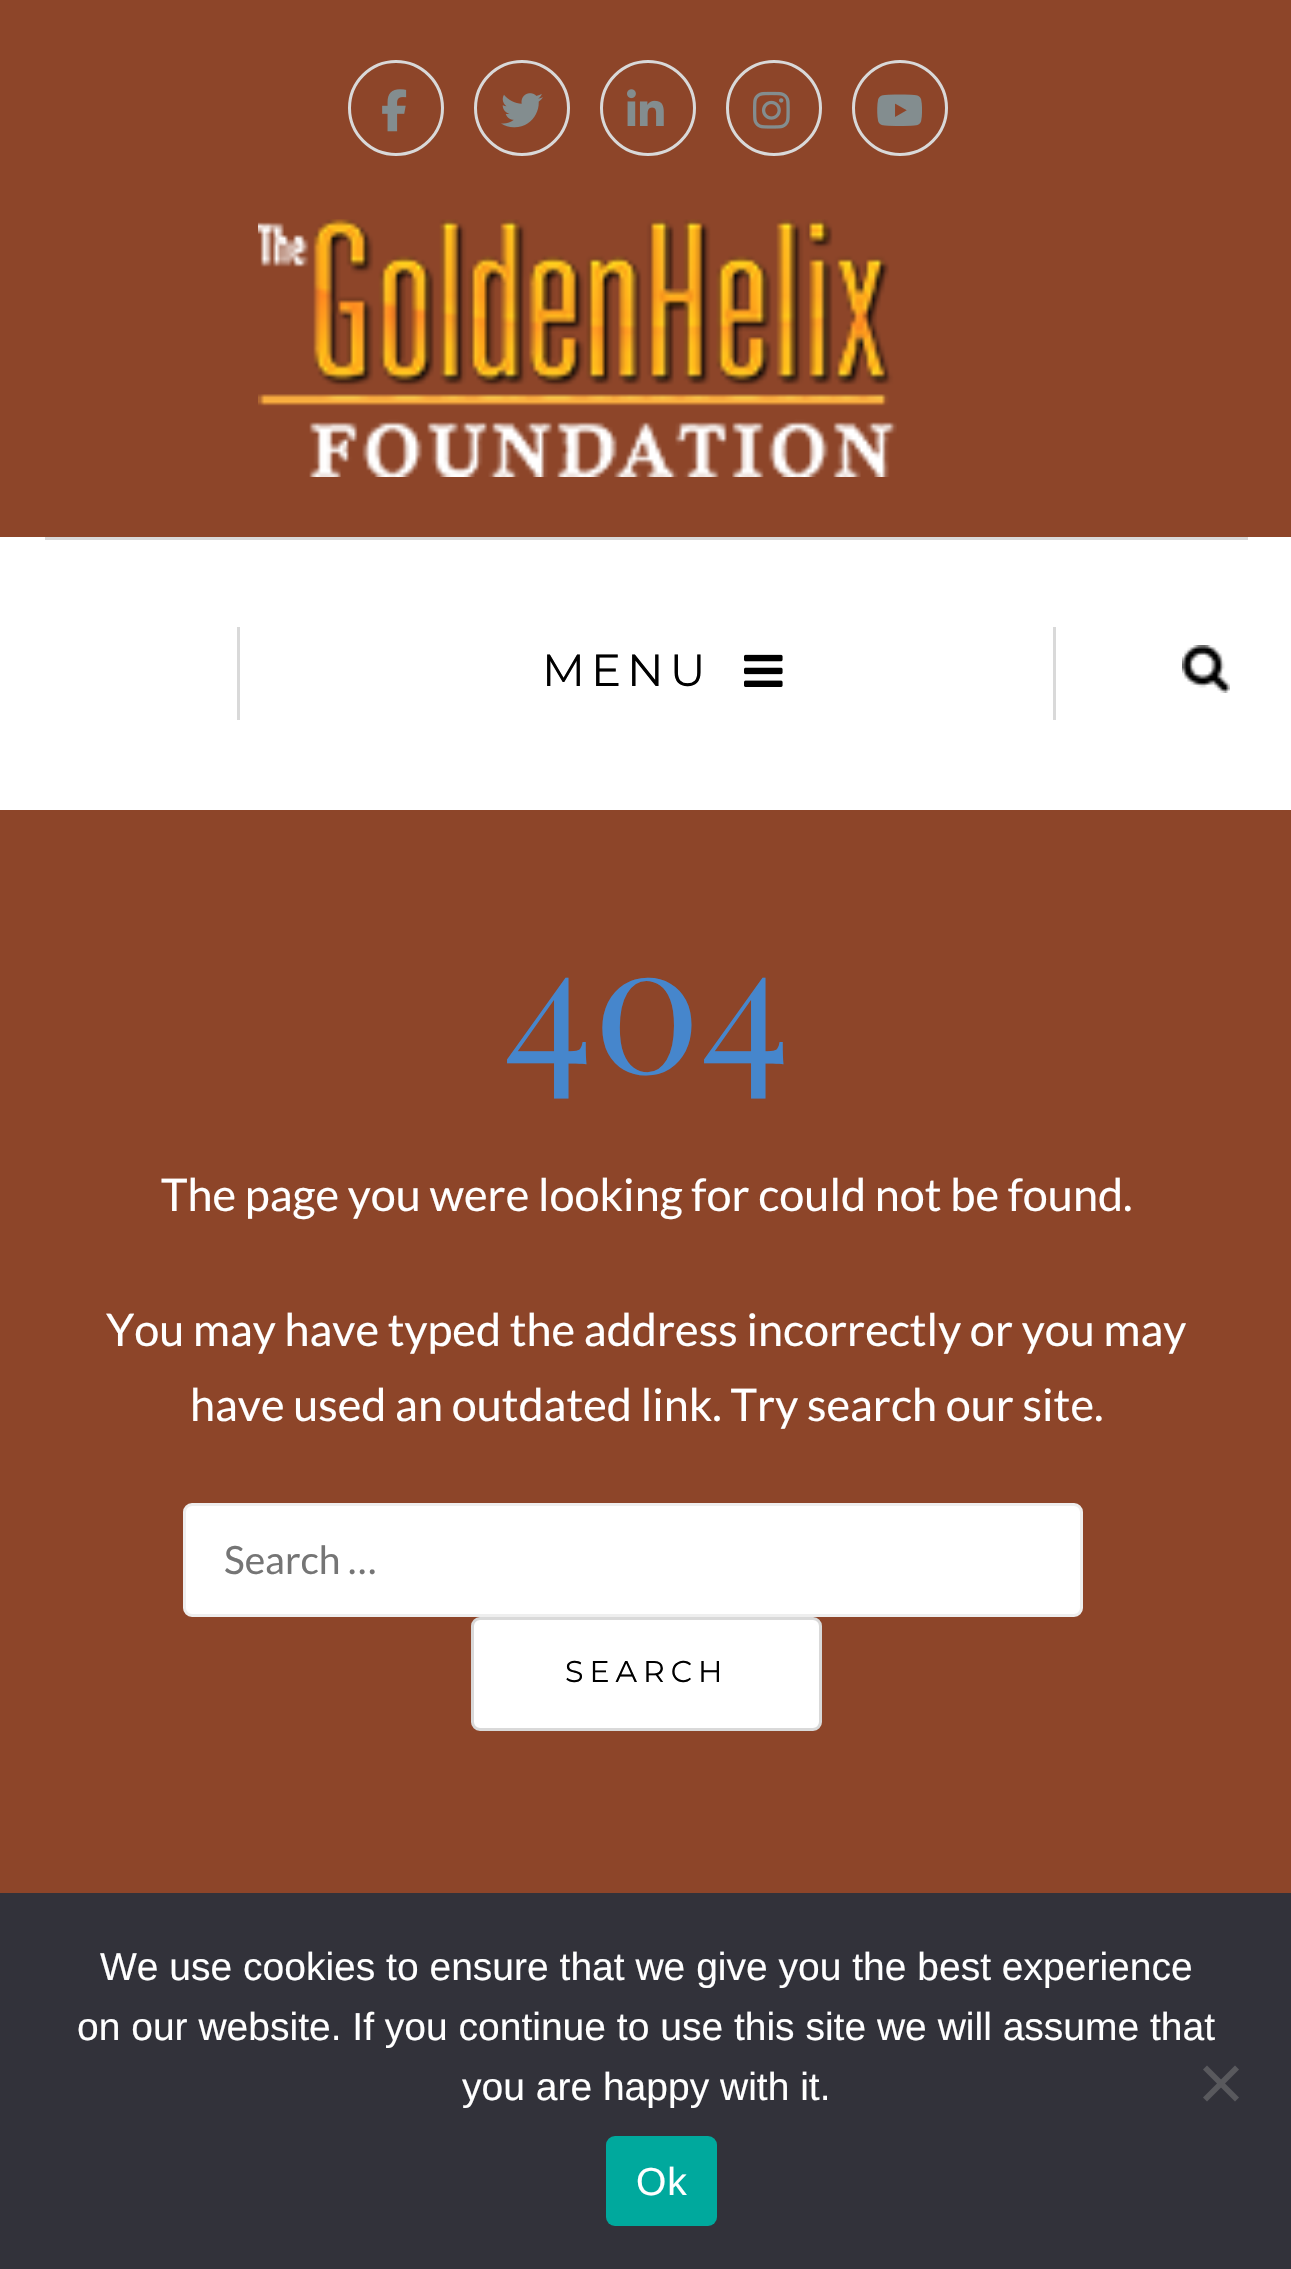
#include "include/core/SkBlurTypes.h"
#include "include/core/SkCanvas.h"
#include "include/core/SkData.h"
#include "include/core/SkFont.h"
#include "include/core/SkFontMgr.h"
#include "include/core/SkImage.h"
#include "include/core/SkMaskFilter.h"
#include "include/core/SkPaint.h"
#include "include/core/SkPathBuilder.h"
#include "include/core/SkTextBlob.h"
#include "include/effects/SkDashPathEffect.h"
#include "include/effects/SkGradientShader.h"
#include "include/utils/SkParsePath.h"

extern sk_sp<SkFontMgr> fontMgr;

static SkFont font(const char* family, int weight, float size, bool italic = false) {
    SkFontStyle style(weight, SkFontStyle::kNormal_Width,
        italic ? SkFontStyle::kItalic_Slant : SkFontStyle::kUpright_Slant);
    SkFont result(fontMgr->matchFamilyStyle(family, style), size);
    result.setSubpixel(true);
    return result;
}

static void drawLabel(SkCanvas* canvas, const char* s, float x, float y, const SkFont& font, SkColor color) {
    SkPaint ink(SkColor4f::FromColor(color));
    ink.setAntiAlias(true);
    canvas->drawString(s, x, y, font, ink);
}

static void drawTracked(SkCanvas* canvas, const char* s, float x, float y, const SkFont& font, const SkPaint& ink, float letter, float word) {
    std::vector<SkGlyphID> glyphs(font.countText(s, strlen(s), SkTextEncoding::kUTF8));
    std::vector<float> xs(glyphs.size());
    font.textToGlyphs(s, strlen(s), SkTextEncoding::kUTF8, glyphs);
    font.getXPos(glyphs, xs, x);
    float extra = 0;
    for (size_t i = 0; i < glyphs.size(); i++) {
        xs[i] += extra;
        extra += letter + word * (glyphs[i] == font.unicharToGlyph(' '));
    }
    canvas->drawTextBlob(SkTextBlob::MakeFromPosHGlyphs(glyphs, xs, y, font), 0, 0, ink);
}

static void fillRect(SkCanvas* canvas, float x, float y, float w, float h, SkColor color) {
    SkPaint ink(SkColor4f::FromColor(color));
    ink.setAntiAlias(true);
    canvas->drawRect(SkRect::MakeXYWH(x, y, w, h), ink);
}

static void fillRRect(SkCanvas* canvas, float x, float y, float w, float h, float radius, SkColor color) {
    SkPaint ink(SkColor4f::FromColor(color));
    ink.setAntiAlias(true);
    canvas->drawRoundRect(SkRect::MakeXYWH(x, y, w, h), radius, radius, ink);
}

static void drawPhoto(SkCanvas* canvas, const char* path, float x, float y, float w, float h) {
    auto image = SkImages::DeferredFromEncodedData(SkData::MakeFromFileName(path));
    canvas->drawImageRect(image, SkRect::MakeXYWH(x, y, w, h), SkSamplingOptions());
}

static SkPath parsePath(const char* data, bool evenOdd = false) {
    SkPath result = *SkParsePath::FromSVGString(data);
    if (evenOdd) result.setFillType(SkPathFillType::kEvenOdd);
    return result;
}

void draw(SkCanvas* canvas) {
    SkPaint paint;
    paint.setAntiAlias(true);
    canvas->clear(0xFF8D4529);
    paint.setStroke(true);
    paint.setStrokeWidth(3);
    paint.setColor(0xFFD9D9D9);
    canvas->drawCircle(396, 108, 46.5f, paint);
    drawPhoto(canvas, "assets/img1.png", 382, 89, 25, 43);
    canvas->drawCircle(522, 108, 46.5f, paint);
    drawPhoto(canvas, "assets/img2.png", 501, 93, 42, 35);
    canvas->drawCircle(648, 108, 46.5f, paint);
    drawPhoto(canvas, "assets/img3.png", 627, 89, 37, 37);
    canvas->drawCircle(774, 108, 46.5f, paint);
    drawPhoto(canvas, "assets/img4.png", 753, 91, 37, 38);
    canvas->drawCircle(900, 108, 46.5f, paint);
    drawPhoto(canvas, "assets/img5.png", 877, 94, 45, 32);
    drawPhoto(canvas, "assets/img6.png", 258, 219, 639, 258);
    fillRect(canvas, 0, 537, 1291, 273, 0xFFFFFFFF);
    fillRect(canvas, 45, 537, 1203, 3, 0xFFD9D9D9);
    fillRect(canvas, 237, 627, 3, 93, 0xFFD9D9D9);
    SkFont font1 = font("Montserrat", 100, 45);
    paint.setStroke(false);
    paint.setColor(0xFF000000);
    drawTracked(canvas, "MENU", 542, 686, font1, paint, 6, 0);
    drawPhoto(canvas, "assets/img7.png", 744, 654, 39, 33);
    fillRect(canvas, 1053, 627, 3, 93, 0xFFD9D9D9);
    drawPhoto(canvas, "assets/img8.png", 1182, 645, 48, 48);
    SkFont font2 = font("Playfair Display", 400, 180);
    drawLabel(canvas, "404", 504, 1073, font2, 0xFF4686CC);
    SkFont font3 = font("Lato", 400, 45);
    drawLabel(canvas, "The page you were looking for could not be found.", 161, 1211, font3, 0xFFFFFFFF);
    drawLabel(canvas, "You may have typed the address incorrectly or you may", 106, 1346, font3, 0xFFFFFFFF);
    drawLabel(canvas, "have used an outdated link. Try search our site.", 190, 1421, font3, 0xFFFFFFFF);
    paint.setColor(0xFFFFFFFF);
    canvas->drawRoundRect(SkRect::MakeXYWH(184.5f, 1504.5f, 897, 111), 7.5f, 7.5f, paint);
    paint.setStroke(true);
    paint.setColor(0xFFEEEEEE);
    canvas->drawRoundRect(SkRect::MakeXYWH(184.5f, 1504.5f, 897, 111), 7.5f, 7.5f, paint);
    SkFont font4 = font("Lato", 400, 39);
    drawLabel(canvas, "Search …", 224, 1574, font4, 0xFF757575);
    paint.setStroke(false);
    paint.setColor(0xFFFFFFFF);
    canvas->drawRoundRect(SkRect::MakeXYWH(472.5f, 1618.5f, 348, 111), 7.5f, 7.5f, paint);
    paint.setStroke(true);
    paint.setColor(0xFFD9D9D9);
    canvas->drawRoundRect(SkRect::MakeXYWH(472.5f, 1618.5f, 348, 111), 7.5f, 7.5f, paint);
    SkFont font5 = font("Montserrat", 100, 30);
    paint.setStroke(false);
    paint.setColor(0xFF000000);
    drawTracked(canvas, "SEARCH", 565, 1682, font5, paint, 6, 0);
    fillRect(canvas, 0, 1893, 1291, 376, 0xFF32323A);
    SkFont font6 = font("Liberation Sans", 400, 39);
    drawLabel(canvas, "We use cookies to ensure that we give you the best experience", 100, 1980, font6, 0xFFFFFFFF);
    drawLabel(canvas, "on our website. If you continue to use this site we will assume that", 77, 2040, font6, 0xFFFFFFFF);
    drawLabel(canvas, "you are happy with it.", 462, 2100, font6, 0xFFFFFFFF);
    paint.setColor(0xFF59595D);
    canvas->drawPath(parsePath("M1235 2065.5L1239 2069.5L1207 2101.5L1203 2097.5Z"), paint);
    canvas->drawPath(parsePath("M1203 2069.5L1207 2065.5L1239 2097.5L1235 2101.5Z"), paint);
    fillRRect(canvas, 606, 2136, 111, 90, 9, 0xFF00A99D);
    paint.setColor(0xFFFFFFFF);
    drawTracked(canvas, "Ok", 636, 2195, font6, paint, 1, 0);
}
